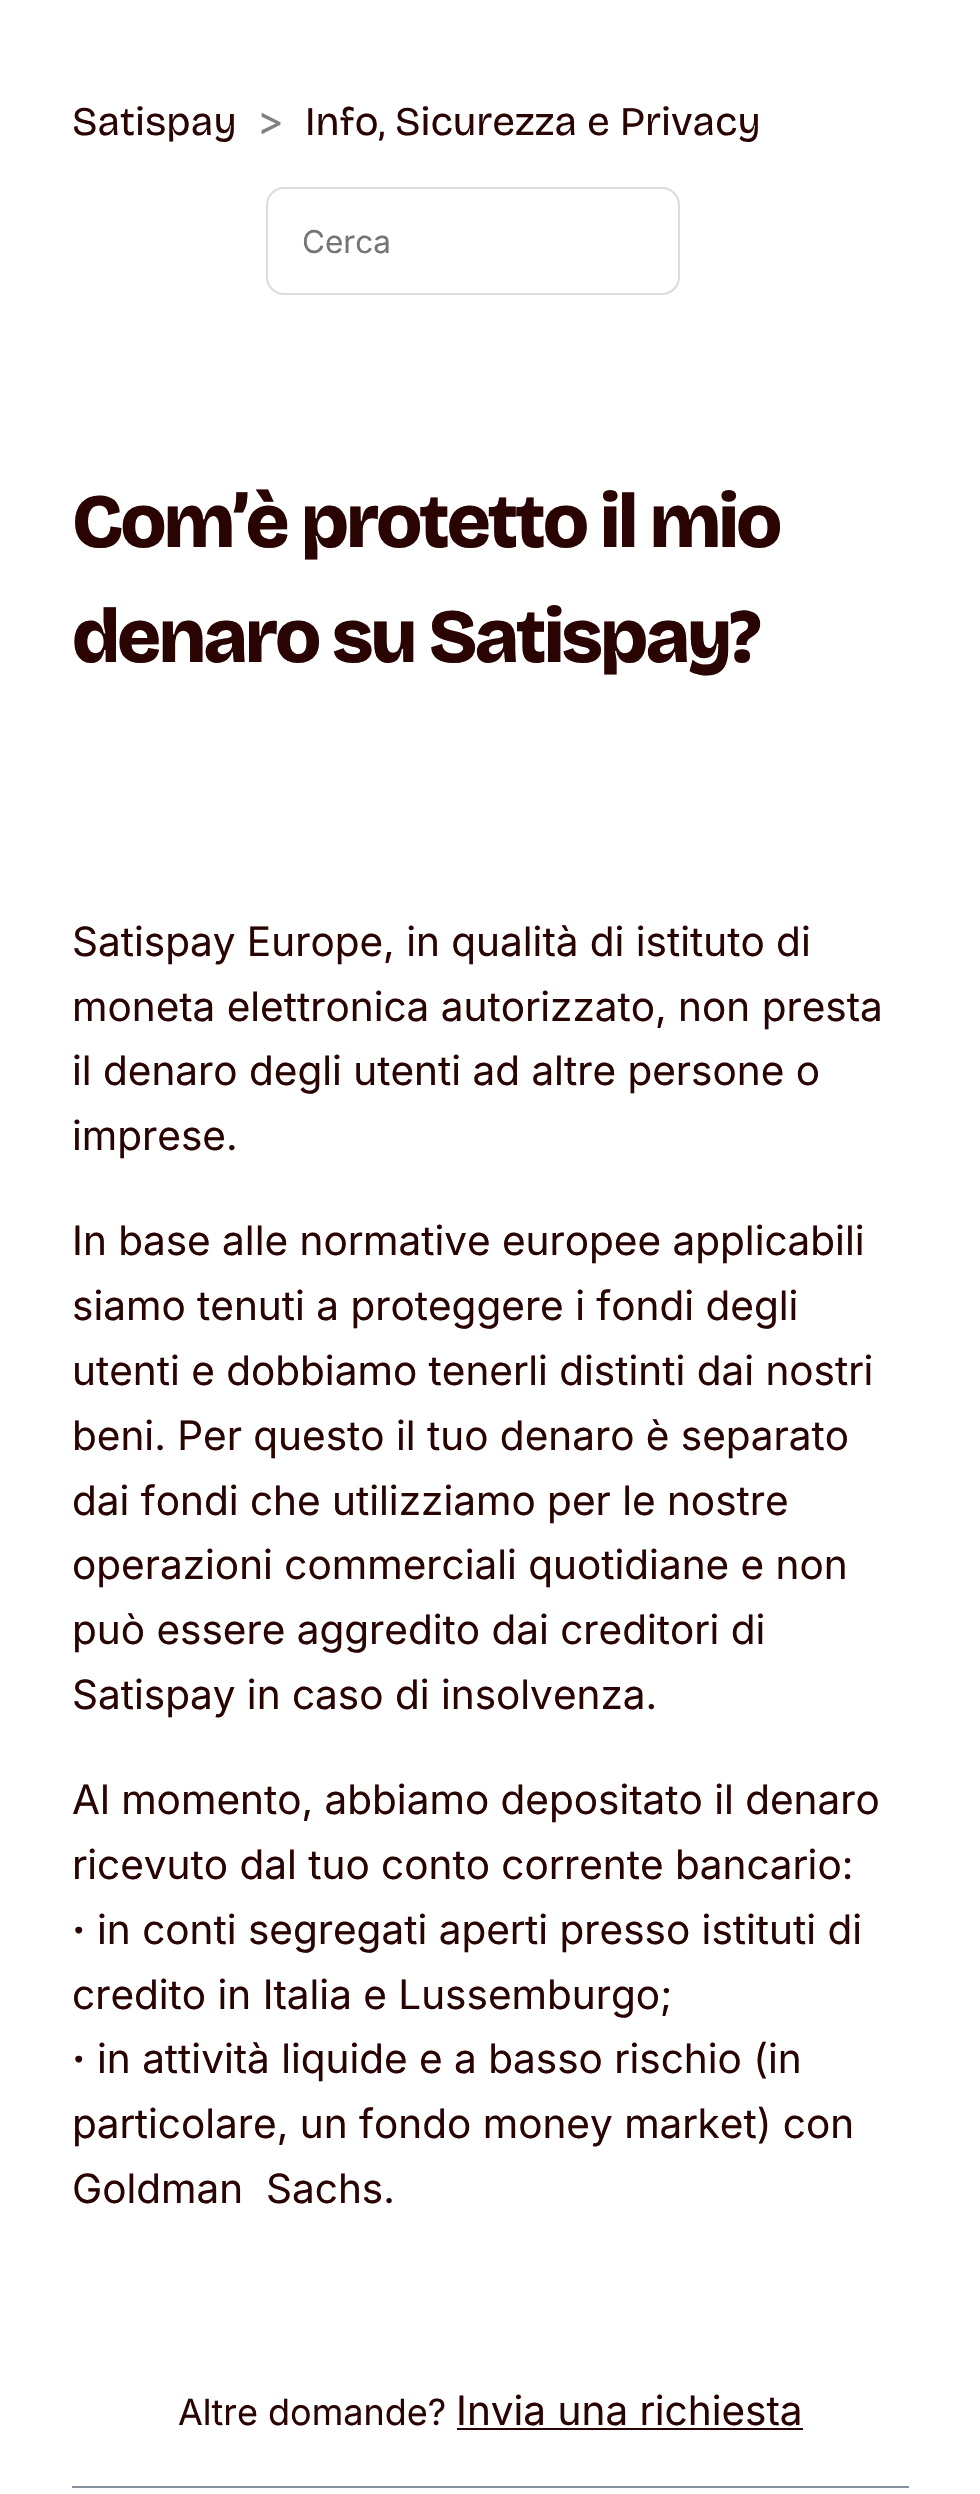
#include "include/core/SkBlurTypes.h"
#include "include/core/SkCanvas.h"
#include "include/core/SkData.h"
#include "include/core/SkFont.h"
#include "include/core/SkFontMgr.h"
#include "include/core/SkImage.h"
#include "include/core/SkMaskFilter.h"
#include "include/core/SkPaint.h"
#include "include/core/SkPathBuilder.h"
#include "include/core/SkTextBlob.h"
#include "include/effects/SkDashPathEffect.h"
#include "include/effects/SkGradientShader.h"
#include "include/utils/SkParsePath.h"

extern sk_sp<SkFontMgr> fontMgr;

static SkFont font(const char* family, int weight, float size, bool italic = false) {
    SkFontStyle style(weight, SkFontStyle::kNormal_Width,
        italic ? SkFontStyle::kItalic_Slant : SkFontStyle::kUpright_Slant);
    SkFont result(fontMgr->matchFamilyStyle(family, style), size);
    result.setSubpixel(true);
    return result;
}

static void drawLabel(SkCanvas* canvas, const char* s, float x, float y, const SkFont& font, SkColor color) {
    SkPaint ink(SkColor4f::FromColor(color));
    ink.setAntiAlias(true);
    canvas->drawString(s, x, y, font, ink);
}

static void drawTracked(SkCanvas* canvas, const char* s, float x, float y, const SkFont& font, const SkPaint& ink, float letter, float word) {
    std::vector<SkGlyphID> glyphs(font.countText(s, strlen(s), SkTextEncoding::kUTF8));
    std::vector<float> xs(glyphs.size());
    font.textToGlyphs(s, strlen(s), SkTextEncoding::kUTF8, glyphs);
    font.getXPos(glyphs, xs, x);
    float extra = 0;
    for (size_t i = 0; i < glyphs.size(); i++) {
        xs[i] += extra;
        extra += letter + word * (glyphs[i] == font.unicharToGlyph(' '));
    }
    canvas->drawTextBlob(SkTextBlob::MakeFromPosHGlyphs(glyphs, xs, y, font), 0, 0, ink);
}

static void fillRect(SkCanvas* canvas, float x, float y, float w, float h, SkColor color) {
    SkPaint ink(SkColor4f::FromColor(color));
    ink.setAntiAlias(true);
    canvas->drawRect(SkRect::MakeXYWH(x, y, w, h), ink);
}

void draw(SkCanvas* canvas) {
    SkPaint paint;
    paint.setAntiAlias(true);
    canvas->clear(0xFFFFFFFF);
    SkFont font1 = font("Bricolage Grotesque", 400, 40.5f);
    drawLabel(canvas, "Satispay", 72, 135, font1, 0xFF290402);
    SkFont font2 = font("Inter", 400, 40.5f);
    drawLabel(canvas, ">", 257, 135, font2, 0xFF808080);
    drawLabel(canvas, "Info, Sicurezza e Privacy", 305, 135, font1, 0xFF290402);
    paint.setStroke(true);
    paint.setStrokeWidth(2);
    paint.setColor(0xFFDCDCDC);
    canvas->drawRoundRect(SkRect::MakeXYWH(267, 188, 412, 106), 17, 17, paint);
    SkFont font3 = font("Inter", 400, 31.5f);
    drawLabel(canvas, "Cerca", 302, 253, font3, 0xFF757575);
    SkFont font4 = font("Bricolage Grotesque", 800, 76.5f);
    paint.setStroke(false);
    paint.setColor(0xFF290402);
    drawTracked(canvas, "Com’è protetto il mio", 72, 547, font4, paint, -2.9f, 0);
    drawTracked(canvas, "denaro su Satispay?", 72, 662, font4, paint, -2.9f, 0);
    drawLabel(canvas, "Satispay Europe, in qualità di istituto di", 72, 956, font2, 0xFF290402);
    drawLabel(canvas, "moneta elettronica autorizzato, non presta", 72, 1021, font2, 0xFF290402);
    drawLabel(canvas, "il denaro degli utenti ad altre persone o", 72, 1085, font2, 0xFF290402);
    drawLabel(canvas, "imprese.", 72, 1150, font2, 0xFF290402);
    drawLabel(canvas, "In base alle normative europee applicabili", 72, 1255, font2, 0xFF290402);
    drawLabel(canvas, "siamo tenuti a proteggere i fondi degli", 72, 1320, font2, 0xFF290402);
    drawLabel(canvas, "utenti e dobbiamo tenerli distinti dai nostri", 72, 1385, font2, 0xFF290402);
    drawLabel(canvas, "beni. Per questo il tuo denaro è separato", 72, 1450, font2, 0xFF290402);
    drawLabel(canvas, "dai fondi che utilizziamo per le nostre", 72, 1515, font2, 0xFF290402);
    drawLabel(canvas, "operazioni commerciali quotidiane e non", 72, 1579, font2, 0xFF290402);
    drawLabel(canvas, "può essere aggredito dai creditori di", 72, 1644, font2, 0xFF290402);
    drawLabel(canvas, "Satispay in caso di insolvenza.", 72, 1709, font2, 0xFF290402);
    drawLabel(canvas, "Al momento, abbiamo depositato il denaro", 72, 1814, font2, 0xFF290402);
    drawLabel(canvas, "ricevuto dal tuo conto corrente bancario:", 72, 1879, font2, 0xFF290402);
    SkFont font5 = font("Inter", 700, 40.5f);
    drawLabel(canvas, "·", 72, 1944, font5, 0xFF290402);
    drawLabel(canvas, "in conti segregati aperti presso istituti di", 97, 1944, font2, 0xFF290402);
    drawLabel(canvas, "credito in Italia e Lussemburgo;", 72, 2009, font2, 0xFF290402);
    drawLabel(canvas, "·", 72, 2073, font5, 0xFF290402);
    drawLabel(canvas, "in attività liquide e a basso rischio (in", 97, 2073, font2, 0xFF290402);
    drawLabel(canvas, "particolare, un fondo money market) con", 72, 2138, font2, 0xFF290402);
    drawLabel(canvas, "Goldman  Sachs.", 72, 2203, font2, 0xFF290402);
    SkFont font6 = font("Inter", 400, 36);
    drawLabel(canvas, "Altre domande?", 178, 2425, font6, 0xFF290402);
    drawLabel(canvas, "Invia una richiesta", 456, 2425, font2, 0xFF290402);
    fillRect(canvas, 457, 2428, 346, 2, 0xFF290402);
    fillRect(canvas, 72, 2486, 837, 2, 0xFF87929D);
}
